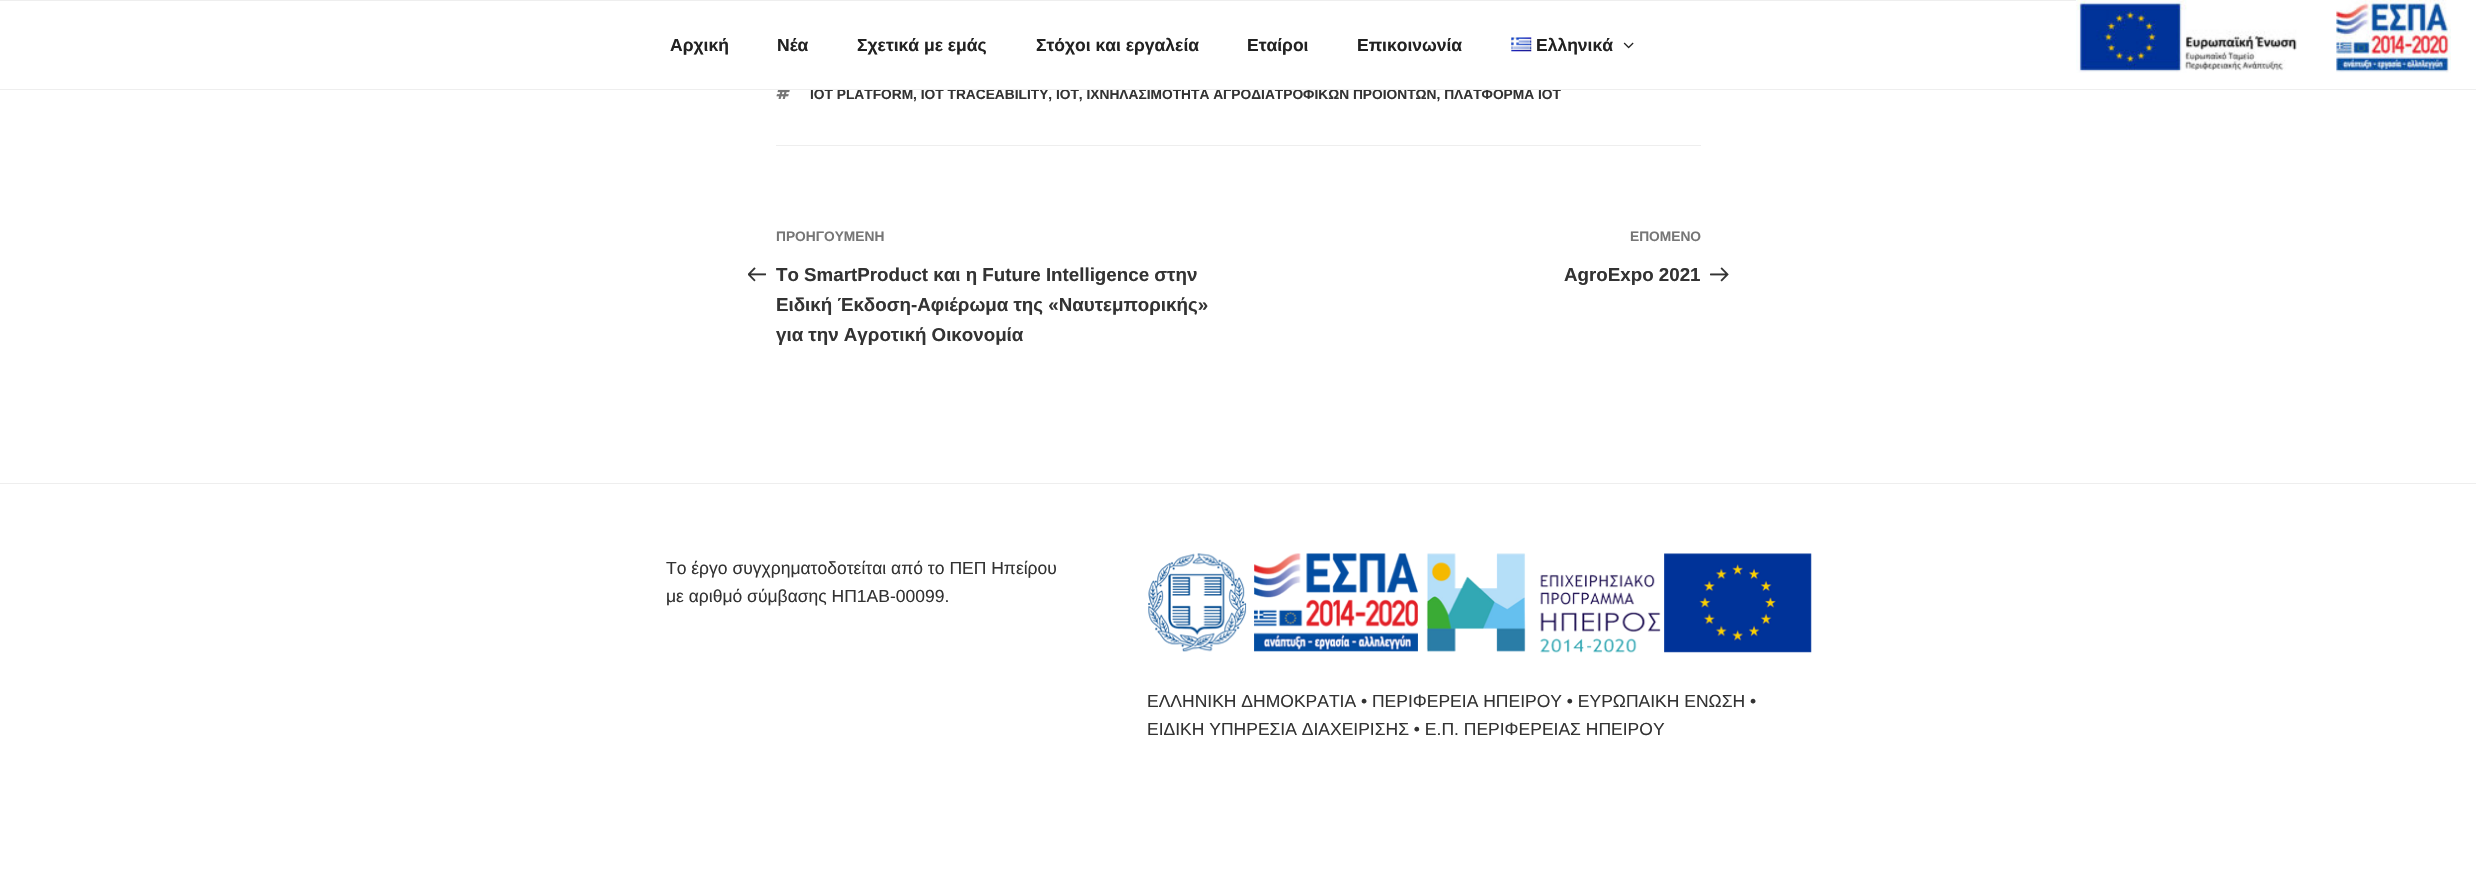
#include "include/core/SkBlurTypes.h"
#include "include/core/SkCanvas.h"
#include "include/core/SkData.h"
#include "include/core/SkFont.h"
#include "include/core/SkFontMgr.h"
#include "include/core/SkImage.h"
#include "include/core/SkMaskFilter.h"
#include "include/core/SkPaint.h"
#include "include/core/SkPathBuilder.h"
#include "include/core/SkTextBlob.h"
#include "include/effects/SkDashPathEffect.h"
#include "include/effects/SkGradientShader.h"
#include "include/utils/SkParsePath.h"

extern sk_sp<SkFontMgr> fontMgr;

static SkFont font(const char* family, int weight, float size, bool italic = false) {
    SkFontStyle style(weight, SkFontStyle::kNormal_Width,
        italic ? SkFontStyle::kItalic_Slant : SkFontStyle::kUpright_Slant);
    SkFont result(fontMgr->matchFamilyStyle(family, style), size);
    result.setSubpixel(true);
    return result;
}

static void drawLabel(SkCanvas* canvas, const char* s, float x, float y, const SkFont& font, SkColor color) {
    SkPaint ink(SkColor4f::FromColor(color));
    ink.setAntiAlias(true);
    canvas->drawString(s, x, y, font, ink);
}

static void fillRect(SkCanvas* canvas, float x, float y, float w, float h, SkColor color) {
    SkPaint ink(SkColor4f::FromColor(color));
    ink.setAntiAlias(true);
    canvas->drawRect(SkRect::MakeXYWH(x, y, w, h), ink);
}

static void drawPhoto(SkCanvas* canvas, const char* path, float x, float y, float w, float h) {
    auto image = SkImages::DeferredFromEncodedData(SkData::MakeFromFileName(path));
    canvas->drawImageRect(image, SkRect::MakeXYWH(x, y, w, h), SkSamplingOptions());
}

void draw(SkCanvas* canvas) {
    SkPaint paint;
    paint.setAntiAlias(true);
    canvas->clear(0xFFFFFFFF);
    SkFont font1 = font("Liberation Sans", 700, 13.75f);
    drawLabel(canvas, "IOT PLATFORM, IOT TRACEABILITY, ΙΟΤ, ΙΧΝΗΛΑΣΙΜΟΤΗΤΑ ΑΓΡΟΔΙΑΤΡΟΦΙΚΩΝ ΠΡΟΪΟΝΤΩΝ, ΠΛΑΤΦΟΡΜΑ ΙΟΤ", 810, 99, font1, 0xFF333333);
    fillRect(canvas, 1382, 87, 5, 2, 0xFFFFFFFF);
    fillRect(canvas, 0, 0, 2076, 1, 0xFFEEEEEE);
    fillRect(canvas, 0, 89, 2476, 1, 0xFFEEEEEE);
    SkFont font2 = font("Liberation Sans", 700, 17.5f);
    drawLabel(canvas, "Αρχική", 670, 51, font2, 0xFF222222);
    drawLabel(canvas, "Νέα", 777, 51, font2, 0xFF222222);
    drawLabel(canvas, "Σχετικά με εμάς", 857, 51, font2, 0xFF222222);
    drawLabel(canvas, "Στόχοι και εργαλεία", 1036, 51, font2, 0xFF222222);
    drawLabel(canvas, "Εταίροι", 1247, 51, font2, 0xFF222222);
    drawLabel(canvas, "Επικοινωνία", 1357, 51, font2, 0xFF222222);
    drawPhoto(canvas, "assets/img1.png", 1511, 37, 21, 15);
    drawLabel(canvas, "Ελληνικά", 1536, 51, font2, 0xFF222222);
    drawPhoto(canvas, "assets/img2.png", 1623, 42, 11, 7);
    fillRect(canvas, 776, 145, 925, 1, 0xFFEEEEEE);
    drawPhoto(canvas, "assets/img3.png", 776, 90, 14, 9);
    drawLabel(canvas, "ΠΡΟΗΓΟΥΜΕΝΗ", 776, 241, font1, 0xFF767676);
    drawPhoto(canvas, "assets/img4.png", 748, 267, 18, 15);
    SkFont font3 = font("Liberation Sans", 700, 18.75f);
    drawLabel(canvas, "To SmartProduct και η Future Intelligence στην", 776, 281, font3, 0xFF333333);
    drawLabel(canvas, "Ειδική Έκδοση-Αφιέρωμα της «Ναυτεμπορικής»", 776, 311, font3, 0xFF333333);
    drawLabel(canvas, "για την Αγροτική Οικονομία", 776, 341, font3, 0xFF333333);
    drawLabel(canvas, "ΕΠΟΜΕΝΟ", 1630, 241, font1, 0xFF767676);
    drawLabel(canvas, "AgroExpo 2021", 1564, 281, font3, 0xFF333333);
    drawPhoto(canvas, "assets/img5.png", 1710, 267, 19, 15);
    fillRect(canvas, 0, 483, 2476, 1, 0xFFEEEEEE);
    SkFont font4 = font("Liberation Sans", 400, 17.5f);
    drawLabel(canvas, "Tο έργο συγχρηματοδοτείται από το ΠΕΠ Ηπείρου", 666, 574, font4, 0xFF333333);
    drawLabel(canvas, "με αριθμό σύμβασης ΗΠ1ΑΒ-00099.", 666, 602, font4, 0xFF333333);
    drawPhoto(canvas, "assets/img6.png", 1148, 553, 664, 100);
    drawLabel(canvas, "ΕΛΛΗΝΙΚΗ ΔΗΜΟΚΡΑΤΙΑ • ΠΕΡΙΦΕΡΕΙΑ ΗΠΕΙΡΟΥ • ΕΥΡΩΠΑΙΚΗ ΕΝΩΣΗ •", 1147, 707, font4, 0xFF333333);
    drawLabel(canvas, "ΕΙΔΙΚΗ ΥΠΗΡΕΣΙΑ ΔΙΑΧΕΙΡΙΣΗΣ • Ε.Π. ΠΕΡΙΦΕΡΕΙΑΣ ΗΠΕΙΡΟΥ", 1147, 735, font4, 0xFF333333);
    drawPhoto(canvas, "assets/img7.png", 2076, 0, 375, 73);
}
